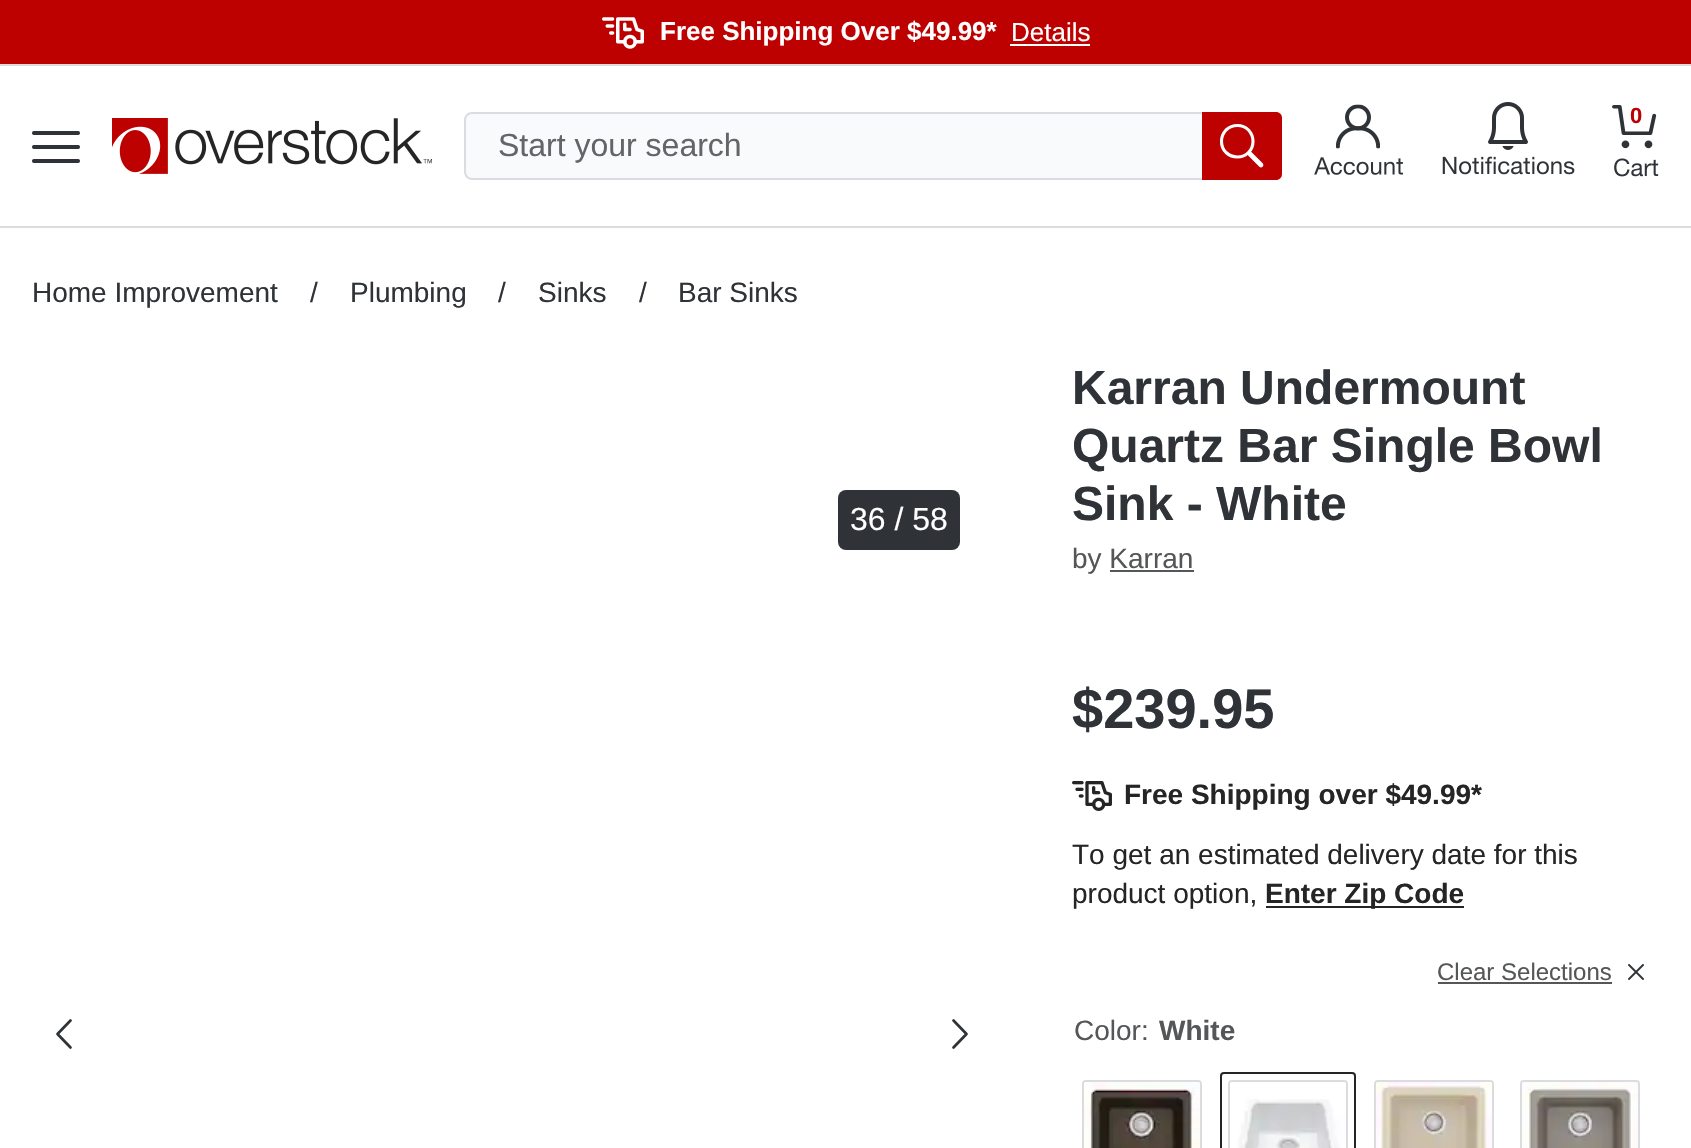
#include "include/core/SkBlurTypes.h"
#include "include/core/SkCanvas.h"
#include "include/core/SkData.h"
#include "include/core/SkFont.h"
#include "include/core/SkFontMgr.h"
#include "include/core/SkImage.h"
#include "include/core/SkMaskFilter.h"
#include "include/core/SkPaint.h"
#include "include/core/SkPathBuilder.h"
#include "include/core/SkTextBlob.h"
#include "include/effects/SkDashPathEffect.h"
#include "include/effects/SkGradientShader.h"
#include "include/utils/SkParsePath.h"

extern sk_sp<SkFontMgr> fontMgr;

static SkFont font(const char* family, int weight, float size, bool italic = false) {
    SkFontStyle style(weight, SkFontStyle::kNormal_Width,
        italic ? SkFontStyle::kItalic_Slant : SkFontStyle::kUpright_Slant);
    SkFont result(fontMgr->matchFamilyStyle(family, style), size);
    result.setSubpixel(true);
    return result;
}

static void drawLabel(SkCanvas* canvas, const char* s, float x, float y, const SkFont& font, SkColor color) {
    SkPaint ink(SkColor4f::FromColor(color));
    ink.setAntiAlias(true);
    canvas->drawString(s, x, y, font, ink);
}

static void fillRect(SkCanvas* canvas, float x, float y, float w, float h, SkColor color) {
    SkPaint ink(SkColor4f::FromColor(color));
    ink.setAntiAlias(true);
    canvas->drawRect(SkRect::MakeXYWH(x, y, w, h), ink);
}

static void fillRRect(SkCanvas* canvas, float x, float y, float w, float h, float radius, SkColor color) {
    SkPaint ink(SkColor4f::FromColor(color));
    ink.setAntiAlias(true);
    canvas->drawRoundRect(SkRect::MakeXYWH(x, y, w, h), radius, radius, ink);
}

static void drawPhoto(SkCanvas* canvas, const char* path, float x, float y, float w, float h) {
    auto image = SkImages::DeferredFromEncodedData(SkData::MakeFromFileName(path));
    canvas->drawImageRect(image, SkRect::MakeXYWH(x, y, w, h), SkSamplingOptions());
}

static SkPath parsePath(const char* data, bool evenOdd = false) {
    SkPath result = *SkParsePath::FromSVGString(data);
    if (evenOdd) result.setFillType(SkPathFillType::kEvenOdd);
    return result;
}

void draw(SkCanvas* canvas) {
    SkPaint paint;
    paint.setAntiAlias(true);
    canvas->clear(0xFFFFFFFF);
    fillRect(canvas, 0, 0, 1691, 64, 0xFFBD0000);
    drawPhoto(canvas, "assets/img1.png", 602, 17, 42, 32);
    SkFont font1 = font("Liberation Sans", 700, 26);
    drawLabel(canvas, "Free Shipping Over $49.99*", 660, 40, font1, 0xFFFFFFFF);
    SkFont font2 = font("Liberation Sans", 400, 26);
    drawLabel(canvas, "Details", 1011, 41, font2, 0xFFFFFFFF);
    fillRect(canvas, 1010, 44, 80, 2, 0xFFFFFFFF);
    fillRect(canvas, 0, 64, 1691, 2, 0xFFDADCDF);
    fillRect(canvas, 0, 226, 1691, 2, 0xFFDADCDF);
    drawPhoto(canvas, "assets/img2.png", 1314, 104, 89, 71);
    drawPhoto(canvas, "assets/img3.png", 1442, 102, 133, 73);
    drawPhoto(canvas, "assets/img4.png", 1612, 105, 47, 72);
    SkFont font3 = font("Liberation Sans", 700, 22);
    drawLabel(canvas, "0", 1630, 123, font3, 0xFFBD0000);
    drawPhoto(canvas, "assets/img5.png", 32, 131, 48, 32);
    drawPhoto(canvas, "assets/img6.png", 112, 118, 320, 56);
    paint.setColor(0xFFF9FAFB);
    canvas->drawRoundRect(SkRect::MakeXYWH(465, 113, 816, 66), 7, 7, paint);
    paint.setStroke(true);
    paint.setStrokeWidth(2);
    paint.setColor(0xFFDADCDF);
    canvas->drawRoundRect(SkRect::MakeXYWH(465, 113, 816, 66), 7, 7, paint);
    SkFont font4 = font("Liberation Sans", 400, 32);
    drawLabel(canvas, "Start your search", 498, 156, font4, 0xFF626669);
    paint.setStroke(false);
    paint.setColor(0xFFBD0000);
    canvas->drawPath(parsePath("M1202 112H1276C1279.5 112 1282 114.5 1282 118V174C1282 177.5 1279.5 180 1276 180H1202Z"), paint);
    paint.setStroke(true);
    paint.setStrokeWidth(4.7f);
    paint.setStrokeCap(SkPaint::kRound_Cap);
    paint.setColor(0xFFFFFFFF);
    canvas->drawPath(parsePath("M1261 165L1250 154"), paint);
    paint.setStrokeWidth(3.1f);
    paint.setStrokeCap(SkPaint::kButt_Cap);
    canvas->drawPath(parsePath("M1248.5 130C1254.5 136.5 1254.5 146.5 1248.5 152.5C1242.5 158.5 1232.5 158.5 1226 152.5C1220 146.5 1220 136.5 1226 130C1232.5 124 1242.5 124 1248.5 130Z"), paint);
    SkFont font5 = font("Liberation Sans", 400, 28);
    drawLabel(canvas, "Home Improvement", 32, 302, font5, 0xFF2F3337);
    drawLabel(canvas, "/", 310, 302, font5, 0xFF2F3337);
    drawLabel(canvas, "Plumbing", 350, 302, font5, 0xFF2F3337);
    drawLabel(canvas, "/", 498, 302, font5, 0xFF2F3337);
    drawLabel(canvas, "Sinks", 538, 302, font5, 0xFF2F3337);
    drawLabel(canvas, "/", 639, 302, font5, 0xFF2F3337);
    drawLabel(canvas, "Bar Sinks", 678, 302, font5, 0xFF2F3337);
    fillRRect(canvas, 838, 490, 122, 60, 8, 0xFF2F3337);
    drawLabel(canvas, "36 / 58", 850, 530, font4, 0xFFFFFFFF);
    paint.setStrokeWidth(2.7f);
    paint.setStrokeCap(SkPaint::kRound_Cap);
    paint.setStrokeJoin(SkPaint::kRound_Join);
    paint.setColor(0xFF2F3337);
    canvas->drawPath(parsePath("M70.5 1020.5L57.5 1034L70.5 1047.5"), paint);
    canvas->drawPath(parsePath("M953.5 1047.5L966.5 1034L953.5 1020.5"), paint);
    SkFont font6 = font("Liberation Sans", 700, 48);
    drawLabel(canvas, "Karran Undermount", 1072, 404, font6, 0xFF2F3337);
    drawLabel(canvas, "Quartz Bar Single Bowl", 1072, 462, font6, 0xFF2F3337);
    drawLabel(canvas, "Sink - White", 1072, 520, font6, 0xFF2F3337);
    drawLabel(canvas, "by Karran", 1072, 568, font5, 0xFF545658);
    fillRect(canvas, 1110, 570, 84, 2, 0xFF545658);
    SkFont font7 = font("Liberation Sans", 700, 56);
    drawLabel(canvas, "$239.95", 1072, 728, font7, 0xFF2F3337);
    drawPhoto(canvas, "assets/img7.png", 1072, 781, 40, 30);
    SkFont font8 = font("Liberation Sans", 700, 28);
    drawLabel(canvas, "Free Shipping over $49.99*", 1124, 804, font8, 0xFF252525);
    drawLabel(canvas, "To get an estimated delivery date for this", 1072, 864, font5, 0xFF252525);
    drawLabel(canvas, "product option,", 1072, 903, font5, 0xFF252525);
    fillRect(canvas, 1266, 906, 198, 2, 0xFF252525);
    drawLabel(canvas, "Enter Zip Code", 1265, 903, font8, 0xFF252525);
    SkFont font9 = font("Liberation Sans", 400, 24);
    drawLabel(canvas, "Clear Selections", 1437, 980, font9, 0xFF545658);
    fillRect(canvas, 1438, 982, 174, 2, 0xFF545658);
    drawPhoto(canvas, "assets/img8.png", 1628, 964, 16, 16);
    drawLabel(canvas, "Color:", 1074, 1040, font5, 0xFF545658);
    drawLabel(canvas, "White", 1159, 1040, font8, 0xFF545658);
    paint.setStrokeWidth(2);
    paint.setStrokeCap(SkPaint::kButt_Cap);
    paint.setStrokeJoin(SkPaint::kMiter_Join);
    paint.setColor(0xFFDADCDF);
    canvas->drawRoundRect(SkRect::MakeXYWH(1083, 1081, 118, 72), 3, 3, paint);
    drawPhoto(canvas, "assets/img9.png", 1084, 1082, 116, 66);
    paint.setColor(0xFF252525);
    canvas->drawRoundRect(SkRect::MakeXYWH(1221, 1073, 134, 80), 3, 3, paint);
    paint.setColor(0xFFDADCDF);
    canvas->drawRoundRect(SkRect::MakeXYWH(1229, 1081, 118, 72), 3, 3, paint);
    drawPhoto(canvas, "assets/img10.png", 1230, 1082, 116, 66);
    canvas->drawRoundRect(SkRect::MakeXYWH(1375, 1081, 118, 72), 3, 3, paint);
    drawPhoto(canvas, "assets/img11.png", 1376, 1082, 116, 66);
    canvas->drawRoundRect(SkRect::MakeXYWH(1521, 1081, 118, 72), 3, 3, paint);
    drawPhoto(canvas, "assets/img12.png", 1522, 1082, 116, 66);
}
